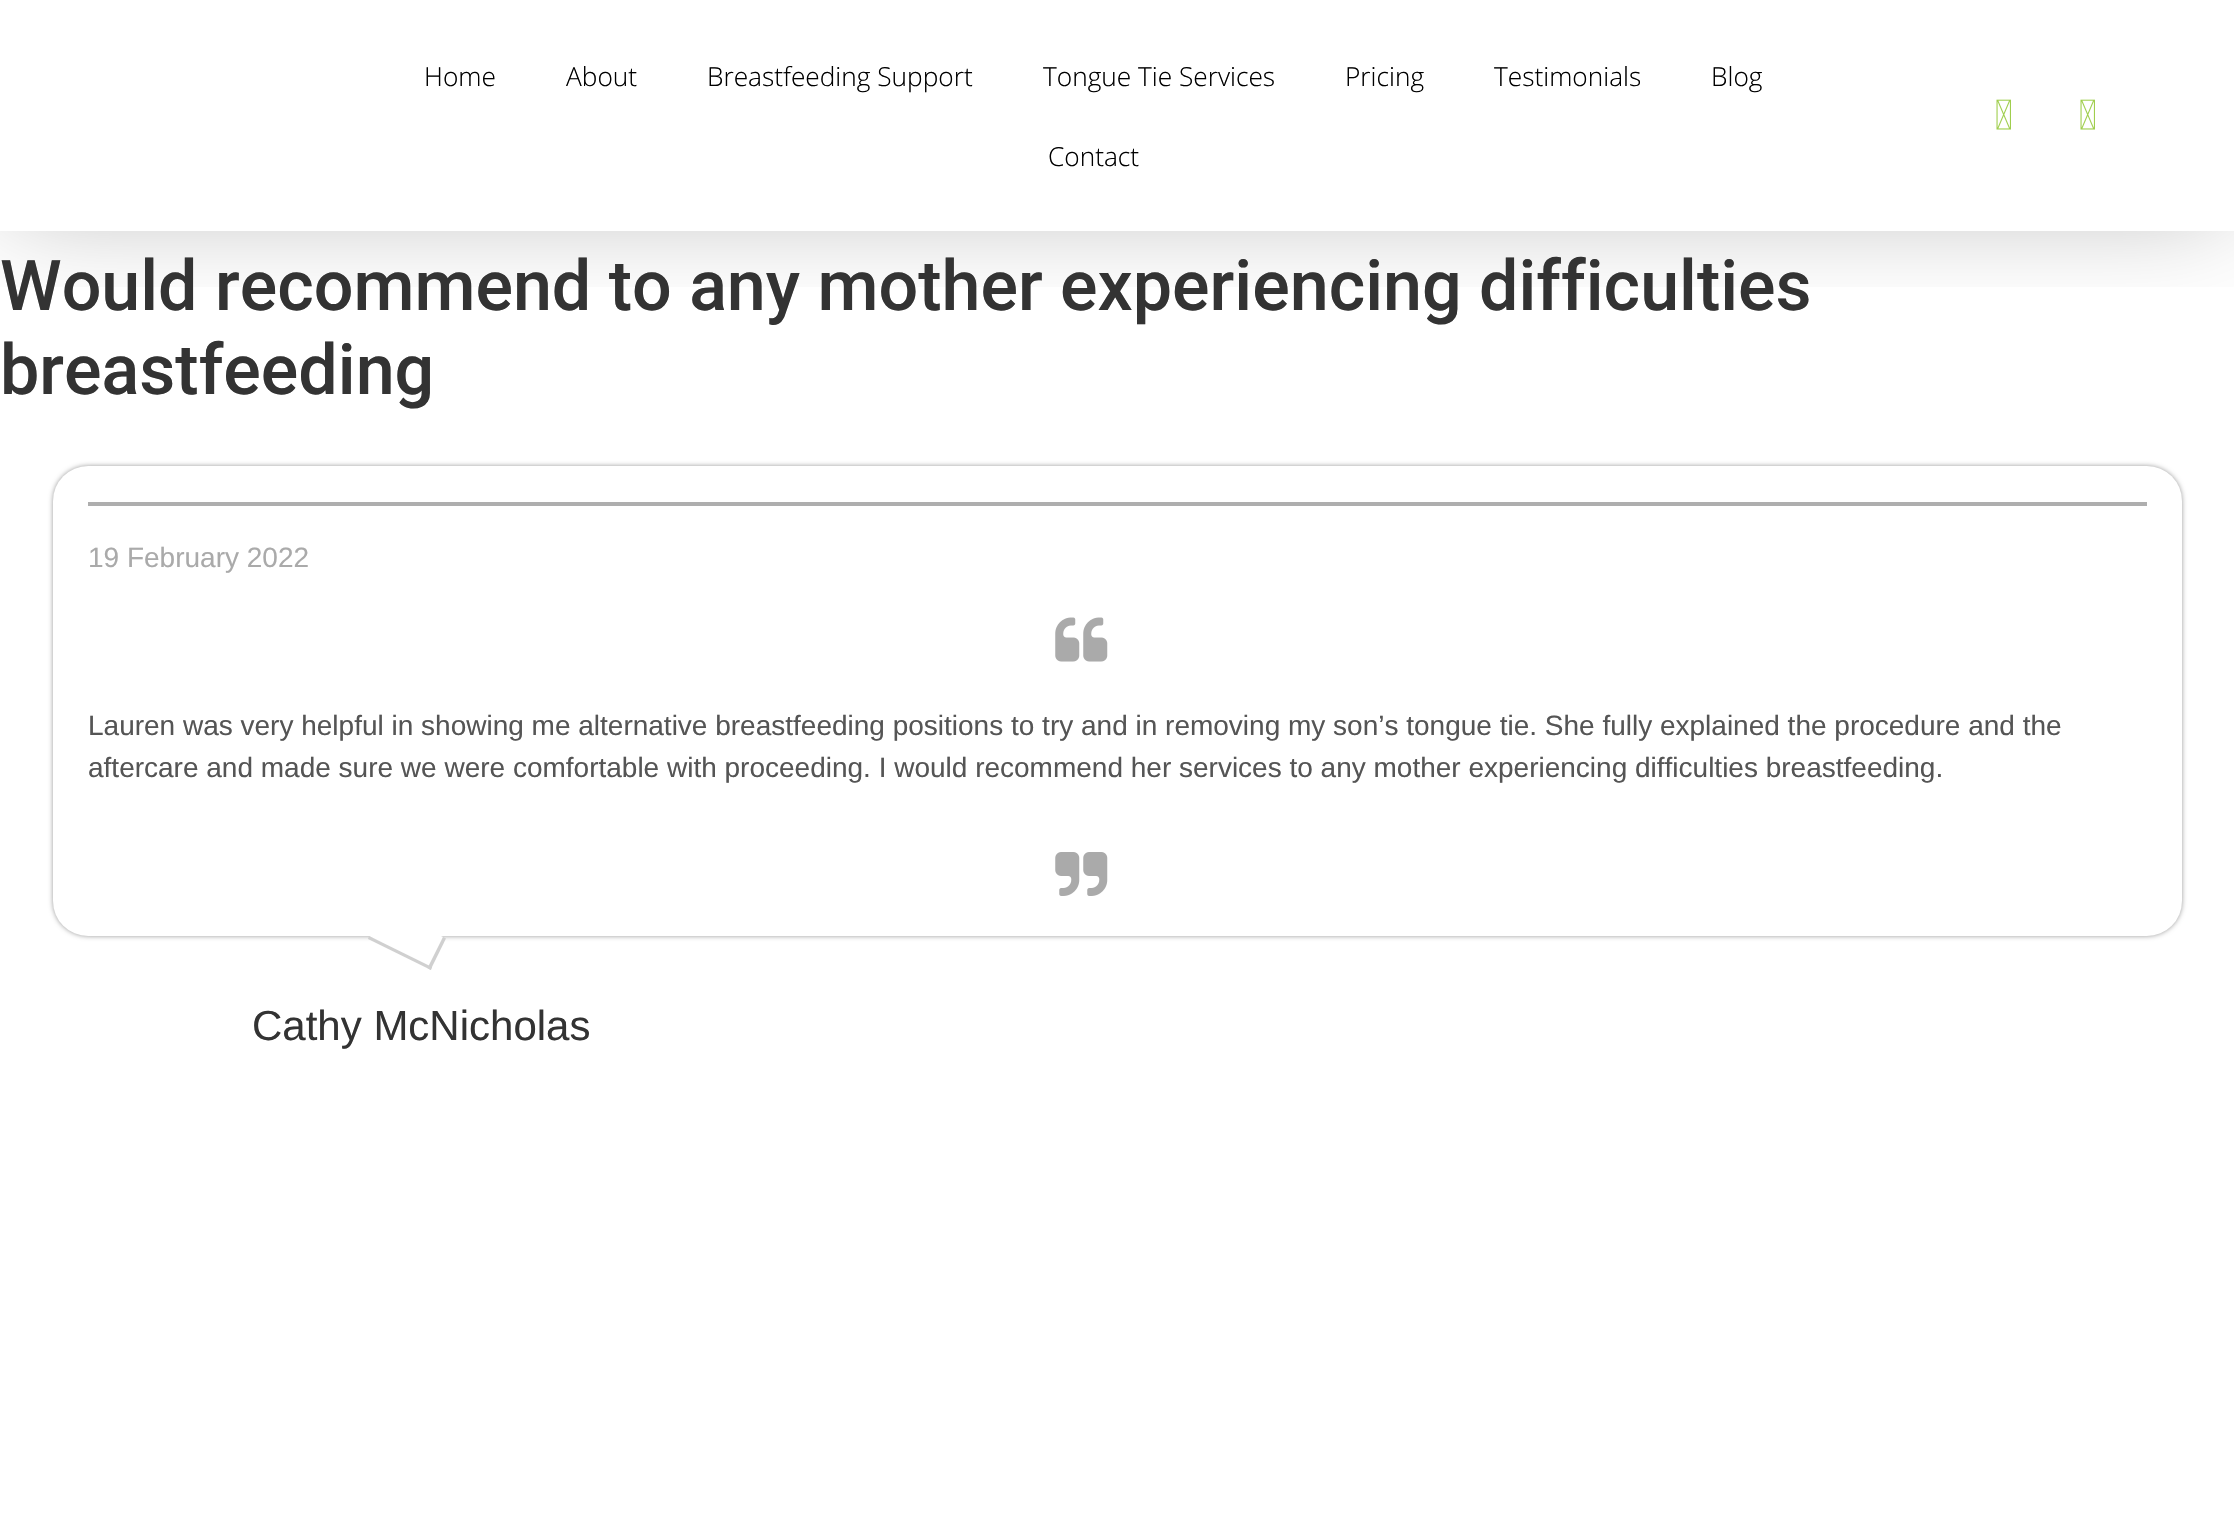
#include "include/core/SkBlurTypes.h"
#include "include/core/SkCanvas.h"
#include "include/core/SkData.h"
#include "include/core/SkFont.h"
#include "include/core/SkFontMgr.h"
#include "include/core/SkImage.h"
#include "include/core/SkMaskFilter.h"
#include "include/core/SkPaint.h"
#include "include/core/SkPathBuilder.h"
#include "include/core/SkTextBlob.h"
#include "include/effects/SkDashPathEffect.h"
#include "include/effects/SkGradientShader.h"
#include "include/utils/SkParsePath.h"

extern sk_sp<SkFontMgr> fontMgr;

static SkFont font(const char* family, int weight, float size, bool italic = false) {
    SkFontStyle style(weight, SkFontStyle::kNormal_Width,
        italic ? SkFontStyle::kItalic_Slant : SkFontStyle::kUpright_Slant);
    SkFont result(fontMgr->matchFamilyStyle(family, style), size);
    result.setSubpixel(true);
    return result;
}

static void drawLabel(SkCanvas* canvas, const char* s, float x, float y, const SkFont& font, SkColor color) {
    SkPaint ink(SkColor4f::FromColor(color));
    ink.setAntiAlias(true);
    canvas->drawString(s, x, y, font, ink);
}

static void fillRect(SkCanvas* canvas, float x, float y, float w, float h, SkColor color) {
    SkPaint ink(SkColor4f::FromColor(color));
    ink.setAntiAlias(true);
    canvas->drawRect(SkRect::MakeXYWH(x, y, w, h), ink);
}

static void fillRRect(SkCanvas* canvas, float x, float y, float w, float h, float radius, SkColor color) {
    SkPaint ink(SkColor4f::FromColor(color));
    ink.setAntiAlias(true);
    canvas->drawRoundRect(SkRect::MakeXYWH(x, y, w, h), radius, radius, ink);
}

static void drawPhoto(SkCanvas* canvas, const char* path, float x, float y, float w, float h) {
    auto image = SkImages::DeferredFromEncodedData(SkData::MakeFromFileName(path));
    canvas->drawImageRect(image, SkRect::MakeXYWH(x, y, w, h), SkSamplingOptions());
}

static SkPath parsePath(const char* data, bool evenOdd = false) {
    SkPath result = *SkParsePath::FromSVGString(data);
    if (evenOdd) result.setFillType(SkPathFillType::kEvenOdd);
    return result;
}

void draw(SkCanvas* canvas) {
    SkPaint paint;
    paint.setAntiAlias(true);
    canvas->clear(0xFFFFFFFF);
    canvas->save();
    canvas->clipRect(SkRect::MakeXYWH(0, 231, 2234, 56));
    paint.setColor(0x47000000);
    paint.setMaskFilter(SkMaskFilter::MakeBlur(kNormal_SkBlurStyle, 51.5f));
    canvas->drawRect(SkRect::MakeXYWH(9, -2, 2217, 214), paint);
    paint.setMaskFilter(nullptr);
    canvas->restore();
    SkFont font1 = font("Open Sans", 300, 26.25f);
    drawLabel(canvas, "Home", 424, 86, font1, 0xFF000000);
    drawLabel(canvas, "About", 566, 86, font1, 0xFF000000);
    drawLabel(canvas, "Breastfeeding Support", 707, 86, font1, 0xFF000000);
    drawLabel(canvas, "Tongue Tie Services", 1043, 86, font1, 0xFF000000);
    drawLabel(canvas, "Pricing", 1345, 86, font1, 0xFF000000);
    drawLabel(canvas, "Testimonials", 1494, 86, font1, 0xFF000000);
    drawLabel(canvas, "Blog", 1711, 86, font1, 0xFF000000);
    drawLabel(canvas, "Contact", 1048, 166, font1, 0xFF000000);
    drawPhoto(canvas, "assets/img1.png", 1996, 99, 15, 31);
    drawPhoto(canvas, "assets/img1.png", 2080, 99, 15, 31);
    SkFont font2 = font("Roboto", 500, 70);
    drawLabel(canvas, "Would recommend to any mother experiencing difficulties", 0, 310, font2, 0xFF333333);
    drawLabel(canvas, "breastfeeding", 0, 394, font2, 0xFF333333);
    paint.setColor(0xFF999999);
    paint.setMaskFilter(SkMaskFilter::MakeBlur(kNormal_SkBlurStyle, 2.5f));
    canvas->drawRoundRect(SkRect::MakeXYWH(53, 466, 2129, 470), 35, 35, paint);
    paint.setMaskFilter(nullptr);
    fillRRect(canvas, 53, 466, 2129, 470, 35, 0xFFFFFFFF);
    fillRect(canvas, 88, 502, 2059, 4, 0xFFAEAEAE);
    SkFont font3 = font("Liberation Sans", 400, 28);
    drawLabel(canvas, "19 February 2022", 88, 567, font3, 0xFFAAAAAA);
    drawPhoto(canvas, "assets/img2.png", 1055, 617, 53, 45);
    drawLabel(canvas, "Lauren was very helpful in showing me alternative breastfeeding positions to try and in removing my son’s tongue tie. She fully explained the procedure and the", 88, 735, font3, 0xFF555555);
    drawLabel(canvas, "aftercare and made sure we were comfortable with proceeding. I would recommend her services to any mother experiencing difficulties breastfeeding.", 88, 777, font3, 0xFF555555);
    drawPhoto(canvas, "assets/img3.png", 1055, 852, 53, 44);
    paint.setColor(0xFFFFFFFF);
    canvas->drawPath(parsePath("M383 908L443 937L429 965L369 936Z"), paint);
    paint.setColor(0xFFD0D0D0);
    canvas->drawPath(parsePath("M443 937L446 938.5L430.5 970L427.5 968Z"), paint);
    canvas->drawPath(parsePath("M369 936L432 967L431 970L368 939Z"), paint);
    SkFont font4 = font("Liberation Sans", 400, 42);
    drawLabel(canvas, "Cathy McNicholas", 252, 1040, font4, 0xFF333333);
}
